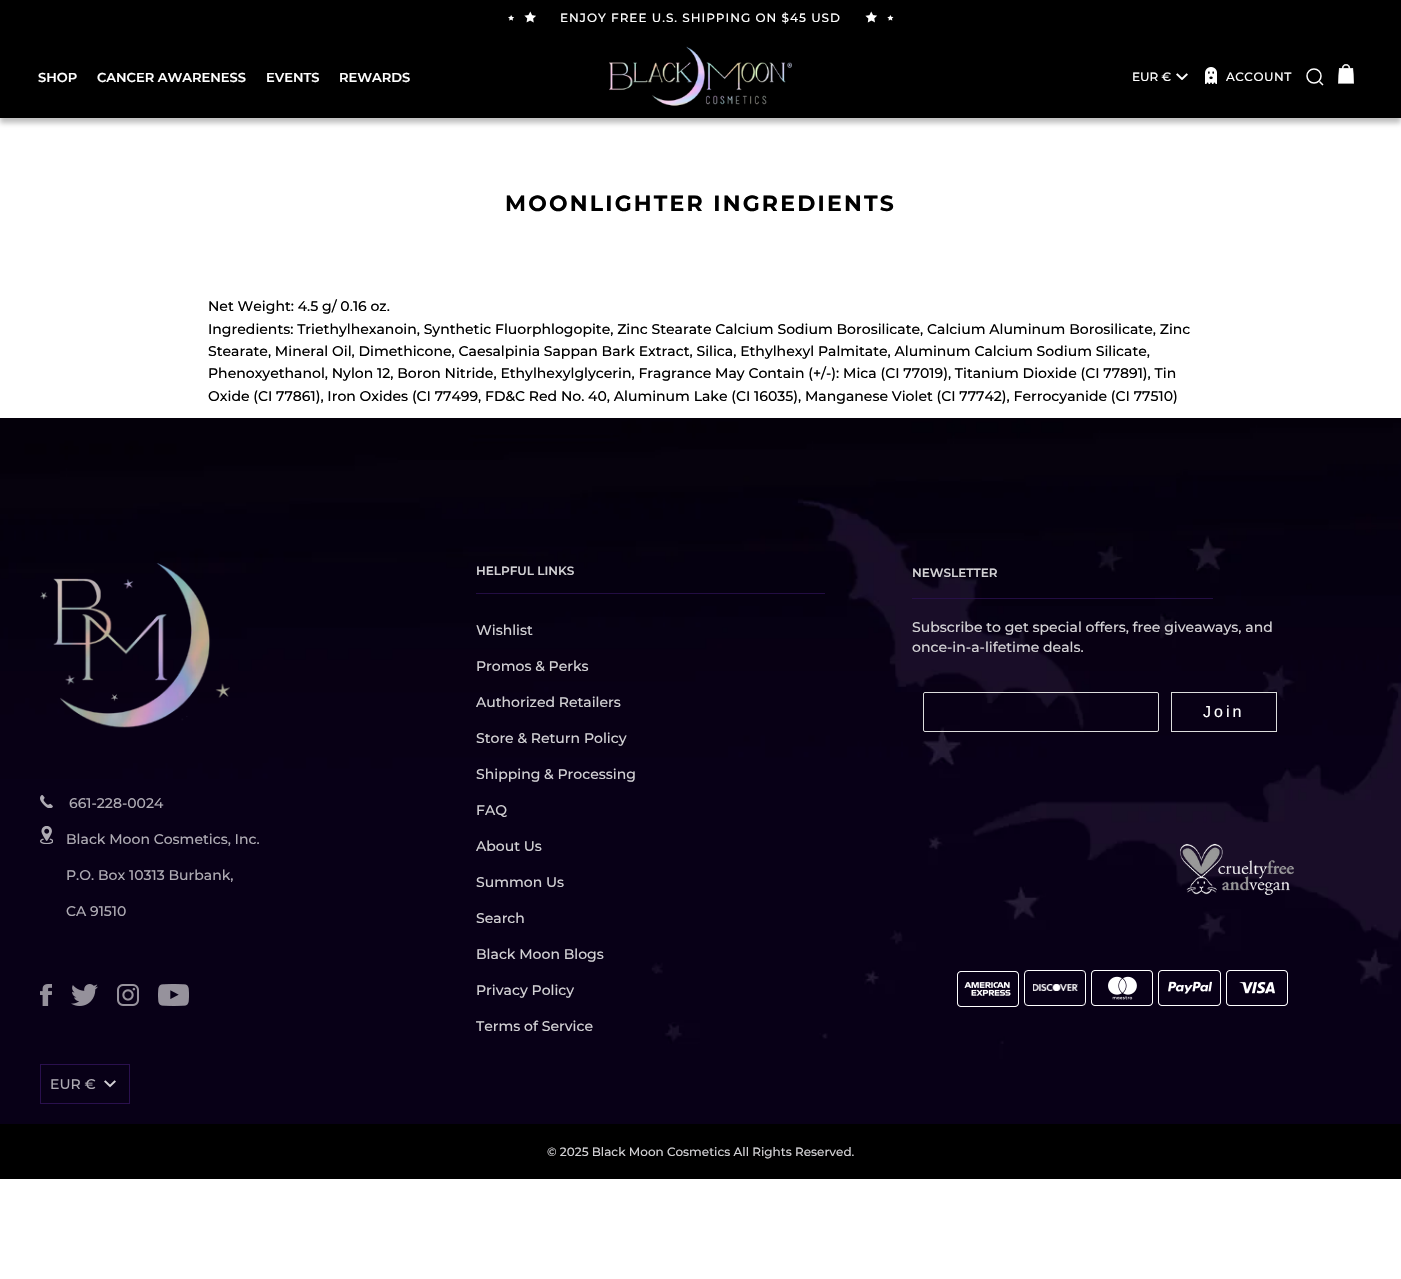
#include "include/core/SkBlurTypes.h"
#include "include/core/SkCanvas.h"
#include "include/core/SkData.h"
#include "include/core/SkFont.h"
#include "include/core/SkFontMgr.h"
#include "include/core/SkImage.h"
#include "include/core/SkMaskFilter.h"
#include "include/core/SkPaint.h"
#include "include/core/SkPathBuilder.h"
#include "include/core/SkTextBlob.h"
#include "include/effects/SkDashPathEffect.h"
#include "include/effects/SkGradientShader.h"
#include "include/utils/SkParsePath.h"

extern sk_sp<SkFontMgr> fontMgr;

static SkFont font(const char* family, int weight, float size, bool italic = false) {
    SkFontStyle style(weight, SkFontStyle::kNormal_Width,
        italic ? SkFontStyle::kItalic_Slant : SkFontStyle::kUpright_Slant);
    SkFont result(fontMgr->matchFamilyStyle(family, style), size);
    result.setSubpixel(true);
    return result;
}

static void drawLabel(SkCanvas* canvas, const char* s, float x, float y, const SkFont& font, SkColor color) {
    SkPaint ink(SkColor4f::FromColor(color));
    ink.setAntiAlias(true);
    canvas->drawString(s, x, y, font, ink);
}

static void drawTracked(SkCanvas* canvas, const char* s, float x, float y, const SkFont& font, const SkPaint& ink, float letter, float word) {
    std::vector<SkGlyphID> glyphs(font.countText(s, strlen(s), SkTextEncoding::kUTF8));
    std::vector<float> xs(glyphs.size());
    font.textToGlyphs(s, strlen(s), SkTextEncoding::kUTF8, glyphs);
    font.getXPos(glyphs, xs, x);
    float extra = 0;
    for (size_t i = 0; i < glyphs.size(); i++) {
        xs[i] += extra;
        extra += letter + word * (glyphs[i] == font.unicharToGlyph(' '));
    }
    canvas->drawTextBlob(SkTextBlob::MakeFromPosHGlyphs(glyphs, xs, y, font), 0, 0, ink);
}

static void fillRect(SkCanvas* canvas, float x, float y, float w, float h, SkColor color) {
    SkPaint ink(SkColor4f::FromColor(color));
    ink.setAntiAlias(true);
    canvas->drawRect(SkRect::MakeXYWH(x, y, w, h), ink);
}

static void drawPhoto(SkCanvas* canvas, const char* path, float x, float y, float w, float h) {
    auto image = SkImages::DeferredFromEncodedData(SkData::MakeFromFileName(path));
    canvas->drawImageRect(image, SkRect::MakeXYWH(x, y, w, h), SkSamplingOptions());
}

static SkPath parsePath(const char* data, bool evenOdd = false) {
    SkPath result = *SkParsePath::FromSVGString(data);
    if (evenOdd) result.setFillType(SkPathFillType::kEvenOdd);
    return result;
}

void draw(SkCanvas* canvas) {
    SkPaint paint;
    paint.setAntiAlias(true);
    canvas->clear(0xFFFFFFFF);
    fillRect(canvas, 0, 0, 1401, 35, 0xFF000000);
    drawPhoto(canvas, "assets/img1.png", 508, 11, 28, 12);
    SkFont font1 = font("Montserrat", 500, 12);
    paint.setColor(0xFFFFFFFF);
    drawTracked(canvas, "ENJOY FREE U.S. SHIPPING ON $45 USD", 560, 22, font1, paint, 1, 0);
    drawPhoto(canvas, "assets/img2.png", 865, 11, 29, 12);
    paint.setColor(0x40000000);
    paint.setMaskFilter(SkMaskFilter::MakeBlur(kNormal_SkBlurStyle, 2.5f));
    canvas->drawRect(SkRect::MakeXYWH(0, 40, 1401, 83), paint);
    paint.setMaskFilter(nullptr);
    fillRect(canvas, 0, 35, 1401, 83, 0xFF000000);
    SkFont font2 = font("Montserrat", 600, 13);
    drawLabel(canvas, "SHOP", 38, 82, font2, 0xFFFFFFFF);
    drawLabel(canvas, "CANCER AWARENESS", 97, 82, font2, 0xFFFFFFFF);
    drawLabel(canvas, "EVENTS", 266, 82, font2, 0xFFFFFFFF);
    drawLabel(canvas, "REWARDS", 339, 82, font2, 0xFFFFFFFF);
    drawPhoto(canvas, "assets/img3.png", 609, 46, 183, 60);
    drawLabel(canvas, "EUR €", 1132, 81, font1, 0xFFFFFFFF);
    drawPhoto(canvas, "assets/img4.png", 1176, 73, 12, 7);
    drawPhoto(canvas, "assets/img5.png", 1205, 67, 12, 17);
    paint.setColor(0xFFFFFFFF);
    drawTracked(canvas, "ACCOUNT", 1226, 81, font1, paint, 0.5f, 0);
    paint.setStroke(true);
    paint.setStrokeWidth(1.5f);
    paint.setColor(0xFFFEFEFE);
    canvas->drawCircle(1314, 76, 7, paint);
    paint.setColor(0xFFFFFFFF);
    canvas->drawPath(parsePath("M1319.5 81.5L1323 85"), paint);
    drawPhoto(canvas, "assets/img6.png", 1338, 64, 16, 20);
    SkFont font3 = font("Montserrat", 700, 22);
    paint.setStroke(false);
    paint.setColor(0xFF000000);
    drawTracked(canvas, "MOONLIGHTER INGREDIENTS", 505, 211, font3, paint, 2.2f, 0);
    SkFont font4 = font("Montserrat", 500, 14);
    drawLabel(canvas, "Net Weight: 4.5 g/ 0.16 oz.", 208, 311, font4, 0xFF000000);
    drawLabel(canvas, "Ingredients: Triethylhexanoin, Synthetic Fluorphlogopite, Zinc Stearate Calcium Sodium Borosilicate, Calcium Aluminum Borosilicate, Zinc", 208, 334, font4, 0xFF000000);
    drawLabel(canvas, "Stearate, Mineral Oil, Dimethicone, Caesalpinia Sappan Bark Extract, Silica, Ethylhexyl Palmitate, Aluminum Calcium Sodium Silicate,", 208, 356, font4, 0xFF000000);
    drawLabel(canvas, "Phenoxyethanol, Nylon 12, Boron Nitride, Ethylhexylglycerin, Fragrance May Contain (+/-): Mica (CI 77019), Titanium Dioxide (CI 77891), Tin", 208, 378, font4, 0xFF000000);
    drawLabel(canvas, "Oxide (CI 77861), Iron Oxides (CI 77499, FD&C Red No. 40, Aluminum Lake (CI 16035), Manganese Violet (CI 77742), Ferrocyanide (CI 77510)", 208, 401, font4, 0xFF000000);
    drawPhoto(canvas, "assets/img7.png", 0, 418, 1401, 706);
    fillRect(canvas, 476, 593, 349, 1, 0xFF230D43);
    SkFont font5 = font("Montserrat", 600, 12);
    drawLabel(canvas, "HELPFUL LINKS", 476, 575, font5, 0xFFD2D1D4);
    drawLabel(canvas, "Wishlist", 476, 635, font4, 0xFFD2D1D4);
    drawLabel(canvas, "Promos & Perks", 476, 671, font4, 0xFFD2D1D4);
    drawLabel(canvas, "Authorized Retailers", 476, 707, font4, 0xFFD2D1D4);
    drawLabel(canvas, "Store & Return Policy", 476, 743, font4, 0xFFD2D1D4);
    drawLabel(canvas, "Shipping & Processing", 476, 779, font4, 0xFFD2D1D4);
    drawLabel(canvas, "FAQ", 476, 815, font4, 0xFFD2D1D4);
    drawLabel(canvas, "About Us", 476, 851, font4, 0xFFD2D1D4);
    drawLabel(canvas, "Summon Us", 476, 887, font4, 0xFFD2D1D4);
    drawLabel(canvas, "Search", 476, 923, font4, 0xFFD2D1D4);
    drawLabel(canvas, "Black Moon Blogs", 476, 959, font4, 0xFFD2D1D4);
    drawLabel(canvas, "Privacy Policy", 476, 995, font4, 0xFFD2D1D4);
    drawLabel(canvas, "Terms of Service", 476, 1031, font4, 0xFFD2D1D4);
    fillRect(canvas, 912, 598, 301, 1, 0xD12A104E);
    drawLabel(canvas, "NEWSLETTER", 912, 577, font5, 0xFFD2D1D4);
    drawLabel(canvas, "Subscribe to get special offers, free giveaways, and", 912, 632, font4, 0xFFD2D1D4);
    drawLabel(canvas, "once-in-a-lifetime deals.", 912, 652, font4, 0xFFD2D1D4);
    paint.setStroke(true);
    paint.setStrokeWidth(1);
    paint.setColor(0xFFDDDDDD);
    canvas->drawRoundRect(SkRect::MakeXYWH(923.5f, 692.5f, 235, 39), 1.5f, 1.5f, paint);
    canvas->drawRect(SkRect::MakeXYWH(1171.5f, 692.5f, 105, 39), paint);
    SkFont font6 = font("Liberation Sans", 400, 16);
    paint.setStroke(false);
    paint.setColor(0xFFFFFFFF);
    drawTracked(canvas, "Join", 1203, 717, font6, paint, 3, 0);
    drawPhoto(canvas, "assets/img8.png", 1180, 843, 114, 52);
    drawPhoto(canvas, "assets/img9.png", 957, 971, 62, 36);
    drawPhoto(canvas, "assets/img10.png", 1024, 970, 62, 36);
    drawPhoto(canvas, "assets/img11.png", 1091, 970, 62, 36);
    drawPhoto(canvas, "assets/img12.png", 1158, 970, 63, 36);
    drawPhoto(canvas, "assets/img13.png", 1226, 970, 62, 36);
    drawPhoto(canvas, "assets/img14.png", 40, 563, 190, 165);
    drawPhoto(canvas, "assets/img15.png", 40, 795, 13, 13);
    drawLabel(canvas, "661-228-0024", 69, 808, font4, 0xFFAEABB3);
    drawPhoto(canvas, "assets/img16.png", 40, 826, 13, 18);
    drawLabel(canvas, "Black Moon Cosmetics, Inc.", 66, 844, font4, 0xFFAEABB3);
    drawLabel(canvas, "P.O. Box 10313 Burbank,", 66, 880, font4, 0xFFAEABB3);
    drawLabel(canvas, "CA 91510", 66, 916, font4, 0xFFAEABB3);
    drawPhoto(canvas, "assets/img17.png", 40, 984, 12, 22);
    drawPhoto(canvas, "assets/img18.png", 71, 984, 27, 22);
    drawPhoto(canvas, "assets/img19.png", 117, 984, 22, 22);
    drawPhoto(canvas, "assets/img20.png", 158, 984, 31, 22);
    paint.setStroke(true);
    paint.setColor(0xFF2A104E);
    canvas->drawRect(SkRect::MakeXYWH(40.5f, 1064.5f, 89, 39), paint);
    drawLabel(canvas, "EUR €", 50, 1089, font4, 0xFFAEABB3);
    drawPhoto(canvas, "assets/img21.png", 104, 1080, 12, 8);
    fillRect(canvas, 0, 1124, 1401, 55, 0xFF000000);
    drawLabel(canvas, "© 2025 Black Moon Cosmetics All Rights Reserved.", 547, 1156, font1, 0xFFD2D1D4);
}
